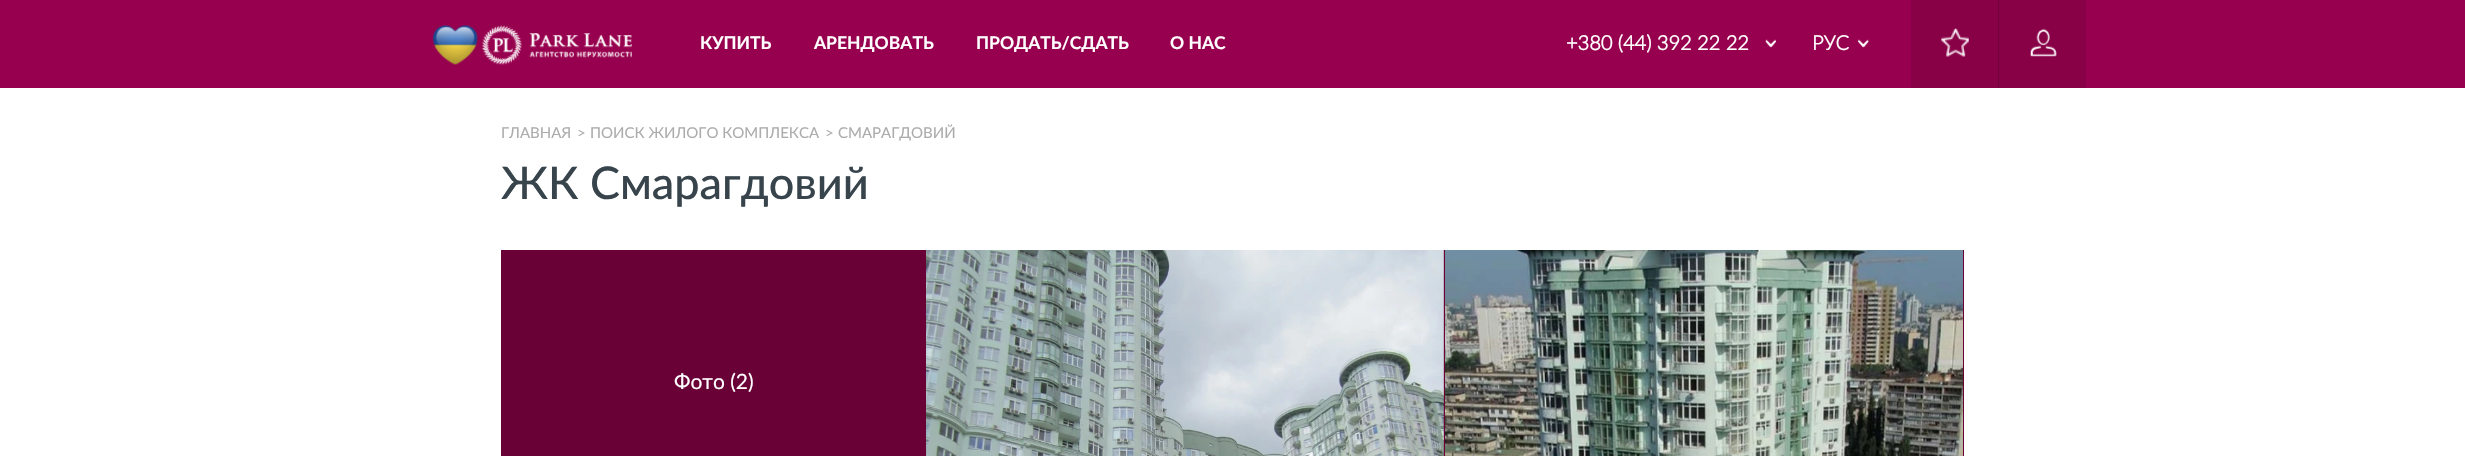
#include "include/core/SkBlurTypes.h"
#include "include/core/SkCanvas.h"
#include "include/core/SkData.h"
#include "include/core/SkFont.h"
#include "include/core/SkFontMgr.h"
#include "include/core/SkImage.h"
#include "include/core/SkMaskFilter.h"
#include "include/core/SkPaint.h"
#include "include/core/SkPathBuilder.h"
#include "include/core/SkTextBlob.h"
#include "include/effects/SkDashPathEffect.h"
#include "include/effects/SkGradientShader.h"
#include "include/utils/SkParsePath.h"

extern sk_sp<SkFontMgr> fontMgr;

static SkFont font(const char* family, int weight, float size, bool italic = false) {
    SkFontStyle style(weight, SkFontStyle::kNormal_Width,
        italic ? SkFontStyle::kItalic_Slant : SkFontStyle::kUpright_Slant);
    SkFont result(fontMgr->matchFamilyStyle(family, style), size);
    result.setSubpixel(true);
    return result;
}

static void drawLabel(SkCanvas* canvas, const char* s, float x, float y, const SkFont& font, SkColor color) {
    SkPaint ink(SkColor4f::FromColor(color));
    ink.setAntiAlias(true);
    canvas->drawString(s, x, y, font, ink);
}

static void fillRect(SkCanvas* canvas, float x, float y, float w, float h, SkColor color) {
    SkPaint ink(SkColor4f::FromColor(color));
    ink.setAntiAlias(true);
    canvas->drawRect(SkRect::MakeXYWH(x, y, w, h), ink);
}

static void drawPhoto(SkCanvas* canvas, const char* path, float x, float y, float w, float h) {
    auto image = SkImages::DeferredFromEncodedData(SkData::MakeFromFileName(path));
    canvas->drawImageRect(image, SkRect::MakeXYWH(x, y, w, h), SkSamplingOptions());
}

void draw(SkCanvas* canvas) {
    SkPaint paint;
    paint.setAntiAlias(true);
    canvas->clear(0xFFFFFFFF);
    fillRect(canvas, 0, 0, 2465, 88, 0xFF97004E);
    drawPhoto(canvas, "assets/img1.png", 432, 25, 200, 41);
    SkFont font1 = font("Lato", 700, 17.5f);
    drawLabel(canvas, "КУПИТЬ", 700, 49, font1, 0xFFFFFFFF);
    drawLabel(canvas, "АРЕНДОВАТЬ", 814, 49, font1, 0xFFFFFFFF);
    drawLabel(canvas, "ПРОДАТЬ/СДАТЬ", 976, 49, font1, 0xFFFFFFFF);
    drawLabel(canvas, "О НАС", 1170, 49, font1, 0xFFFFFFFF);
    SkFont font2 = font("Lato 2", 700, 20);
    drawLabel(canvas, "+380 (44) 392 22 22", 1566, 50, font2, 0xFFFFFFFF);
    drawPhoto(canvas, "assets/img2.png", 1765, 39, 11, 9);
    drawLabel(canvas, "РУС", 1812, 50, font2, 0xFFFFFFFF);
    drawPhoto(canvas, "assets/img3.png", 1858, 39, 11, 9);
    fillRect(canvas, 1911, 0, 87, 88, 0xFF880046);
    fillRect(canvas, 1998, 0, 1, 88, 0xFF6D0038);
    drawPhoto(canvas, "assets/img4.png", 1941, 28, 28, 29);
    fillRect(canvas, 1999, 0, 87, 88, 0xFF880046);
    drawPhoto(canvas, "assets/img5.png", 2030, 28, 27, 29);
    SkFont font3 = font("Lato", 400, 15);
    drawLabel(canvas, "ГЛАВНАЯ", 501, 138, font3, 0xFFACACAC);
    drawLabel(canvas, ">", 577, 138, font3, 0xFFACACAC);
    drawLabel(canvas, "ПОИСК ЖИЛОГО КОМПЛЕКСА", 590, 138, font3, 0xFFACACAC);
    drawLabel(canvas, ">", 825, 138, font3, 0xFFACACAC);
    drawLabel(canvas, "СМАРАГДОВИЙ", 838, 138, font3, 0xFFACACAC);
    SkFont font4 = font("Lato", 500, 45);
    drawLabel(canvas, "ЖК Смарагдовий", 501, 199, font4, 0xFF38444C);
    fillRect(canvas, 501, 250, 1463, 206, 0xFF690036);
    SkFont font5 = font("Lato", 400, 21);
    drawLabel(canvas, "Фото (2)", 674, 389, font5, 0xFFFFFFFF);
    drawPhoto(canvas, "assets/img6.png", 926, 250, 518, 206);
    drawPhoto(canvas, "assets/img7.png", 1445, 250, 518, 206);
}
